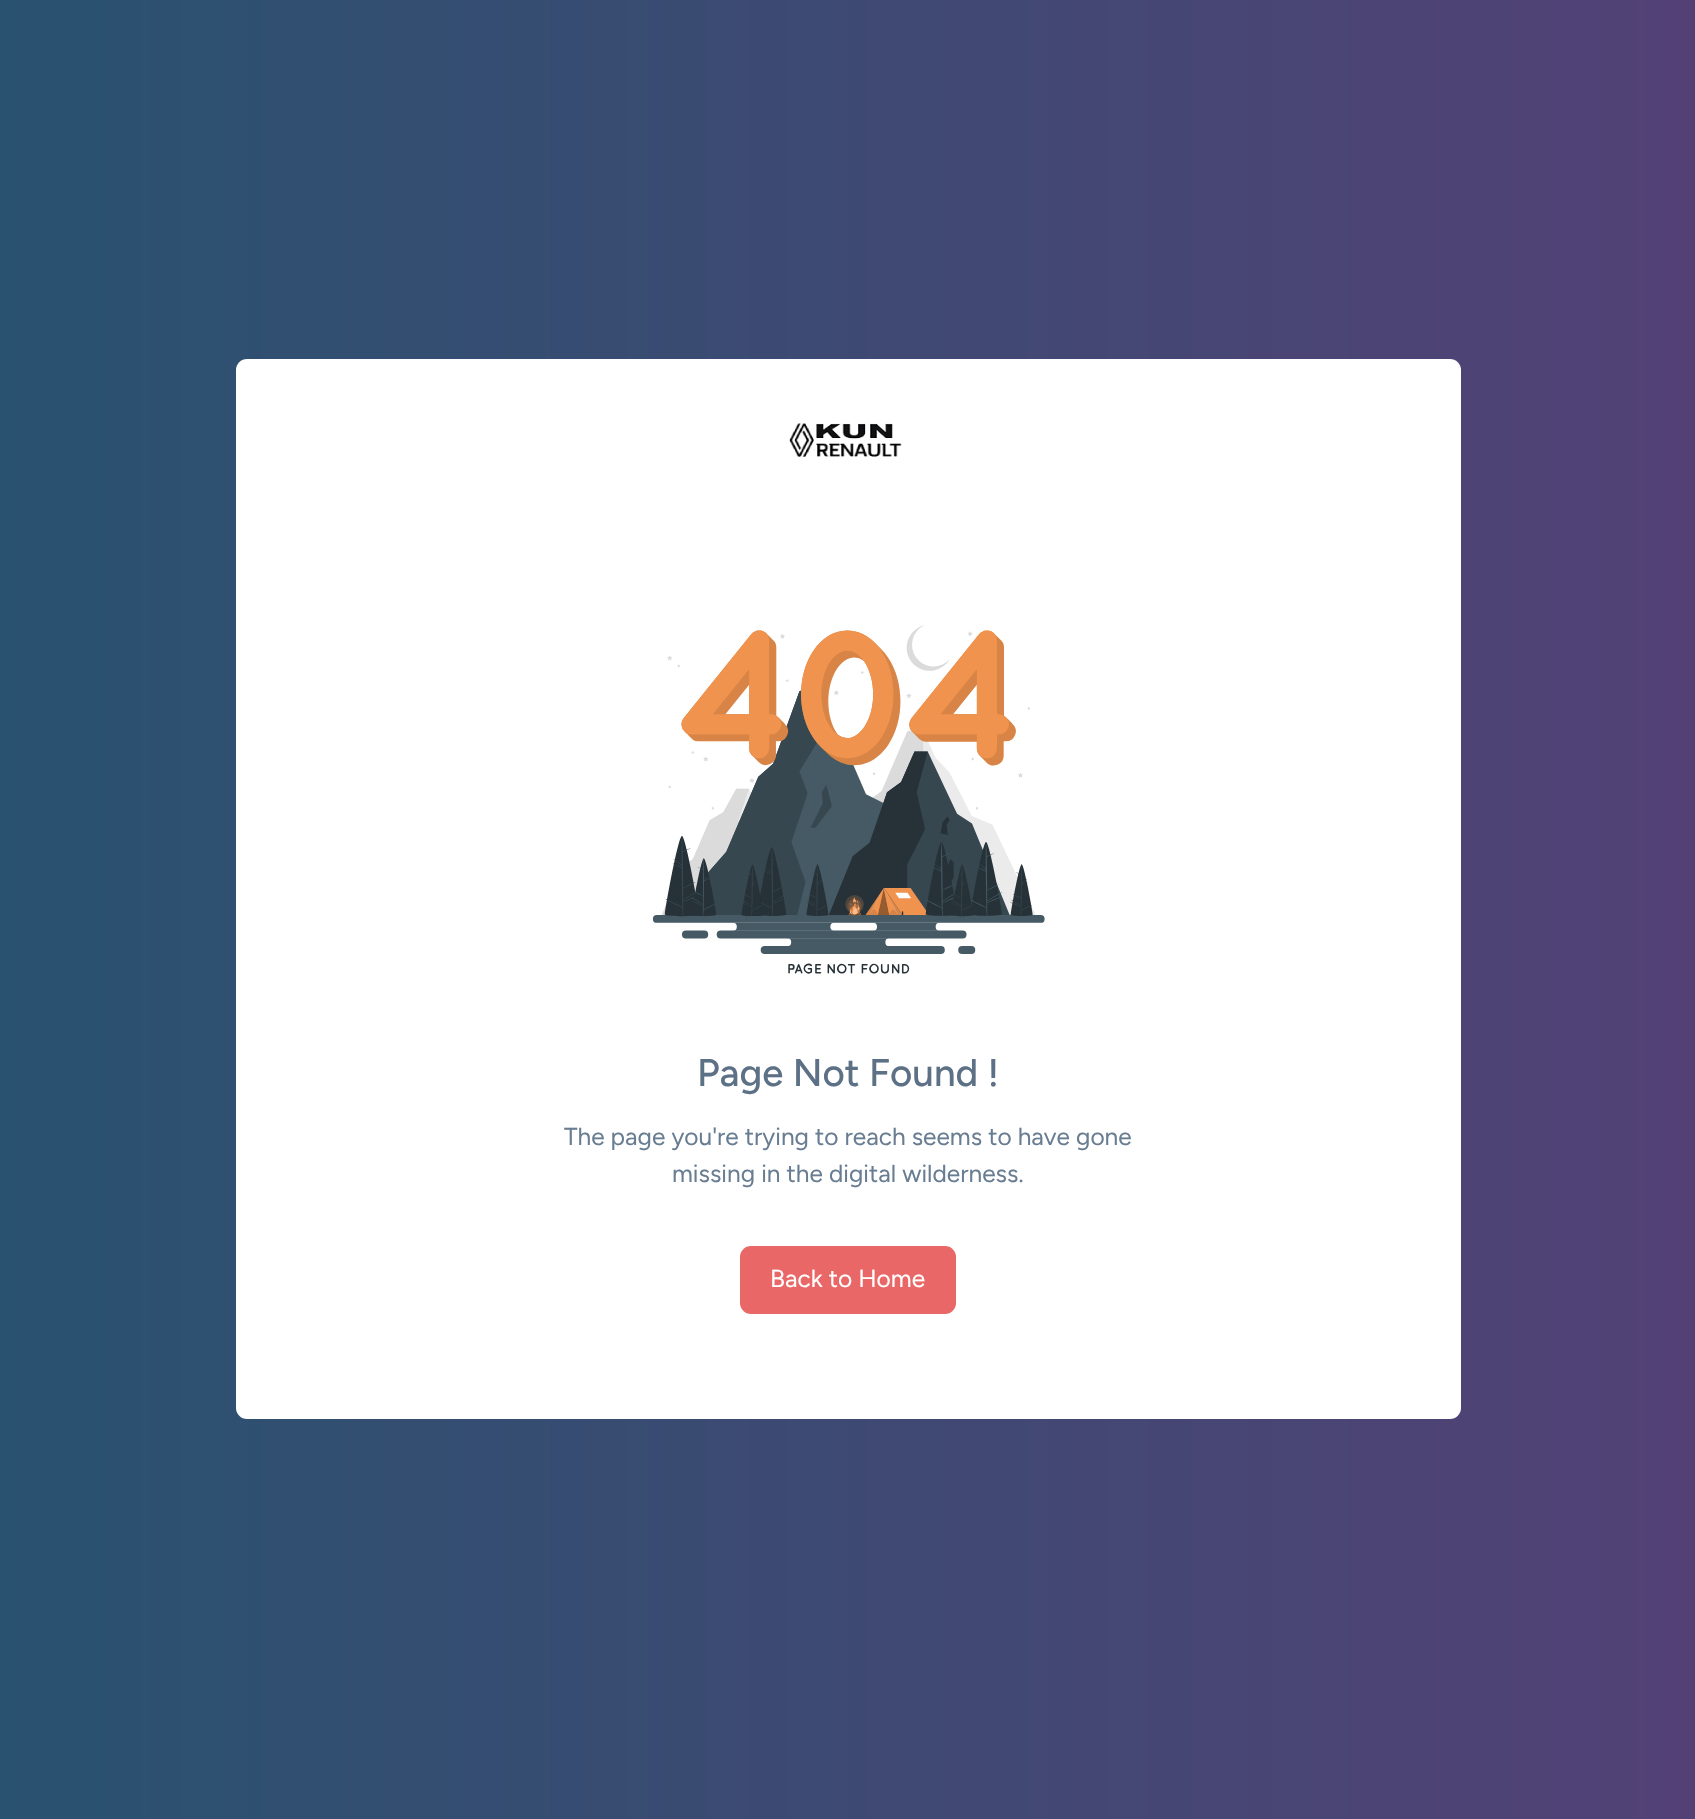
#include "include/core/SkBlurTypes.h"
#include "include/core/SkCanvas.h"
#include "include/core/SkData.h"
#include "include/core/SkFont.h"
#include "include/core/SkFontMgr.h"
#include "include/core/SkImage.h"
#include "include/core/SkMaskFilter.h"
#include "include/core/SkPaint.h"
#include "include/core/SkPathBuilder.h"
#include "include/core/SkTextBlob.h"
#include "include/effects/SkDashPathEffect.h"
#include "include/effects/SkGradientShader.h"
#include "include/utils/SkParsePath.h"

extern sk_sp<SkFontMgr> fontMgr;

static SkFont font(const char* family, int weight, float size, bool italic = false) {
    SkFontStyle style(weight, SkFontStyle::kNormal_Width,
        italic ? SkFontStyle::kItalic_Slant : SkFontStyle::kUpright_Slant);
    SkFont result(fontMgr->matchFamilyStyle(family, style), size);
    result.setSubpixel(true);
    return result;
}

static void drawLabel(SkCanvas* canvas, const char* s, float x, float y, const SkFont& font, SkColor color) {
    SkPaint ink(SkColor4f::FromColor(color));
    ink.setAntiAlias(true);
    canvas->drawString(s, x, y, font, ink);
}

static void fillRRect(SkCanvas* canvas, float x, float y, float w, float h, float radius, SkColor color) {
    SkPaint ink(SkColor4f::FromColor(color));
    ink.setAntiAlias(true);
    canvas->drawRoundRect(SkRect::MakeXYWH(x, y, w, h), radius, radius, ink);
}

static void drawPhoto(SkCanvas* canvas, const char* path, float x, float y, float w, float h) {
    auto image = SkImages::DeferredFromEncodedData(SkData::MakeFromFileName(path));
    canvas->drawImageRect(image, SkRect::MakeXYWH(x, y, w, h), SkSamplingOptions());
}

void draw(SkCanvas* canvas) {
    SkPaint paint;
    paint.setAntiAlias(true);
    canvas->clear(0xFFFFFFFF);
    {
        const SkColor colors[] = {0xFF295270, 0xFF534176};
        const float stops[] = {0, 1};
        const SkPoint ends[] = {{0, 910}, {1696, 910}};
        paint.setShader(SkGradientShader::MakeLinear(ends, colors, stops, 2, SkTileMode::kClamp));
        paint.setAlpha(255);
    }
    canvas->drawRect(SkRect::MakeXYWH(0, 0, 1695, 1819), paint);
    fillRRect(canvas, 236, 359, 1225, 1060, 11, 0xFFFFFFFF);
    drawPhoto(canvas, "assets/img1.png", 789, 423, 113, 34);
    drawPhoto(canvas, "assets/img2.png", 652, 625, 393, 349);
    SkFont font1 = font("Figtree", 500, 38.5f);
    drawLabel(canvas, "Page Not Found !", 697, 1086, font1, 0xFF5D7186);
    SkFont font2 = font("Figtree", 400, 24.5f);
    drawLabel(canvas, "The page you're trying to reach seems to have gone", 564, 1145, font2, 0xFF687D92);
    drawLabel(canvas, "missing in the digital wilderness.", 672, 1182, font2, 0xFF687D92);
    paint.setShader(nullptr);
    paint.setColor(0xFFE96767);
    canvas->drawRoundRect(SkRect::MakeXYWH(741, 1247, 214, 66), 10, 10, paint);
    paint.setStroke(true);
    paint.setStrokeWidth(2);
    canvas->drawRoundRect(SkRect::MakeXYWH(741, 1247, 214, 66), 10, 10, paint);
    drawLabel(canvas, "Back to Home", 770, 1287, font2, 0xFFFFFFFF);
}
